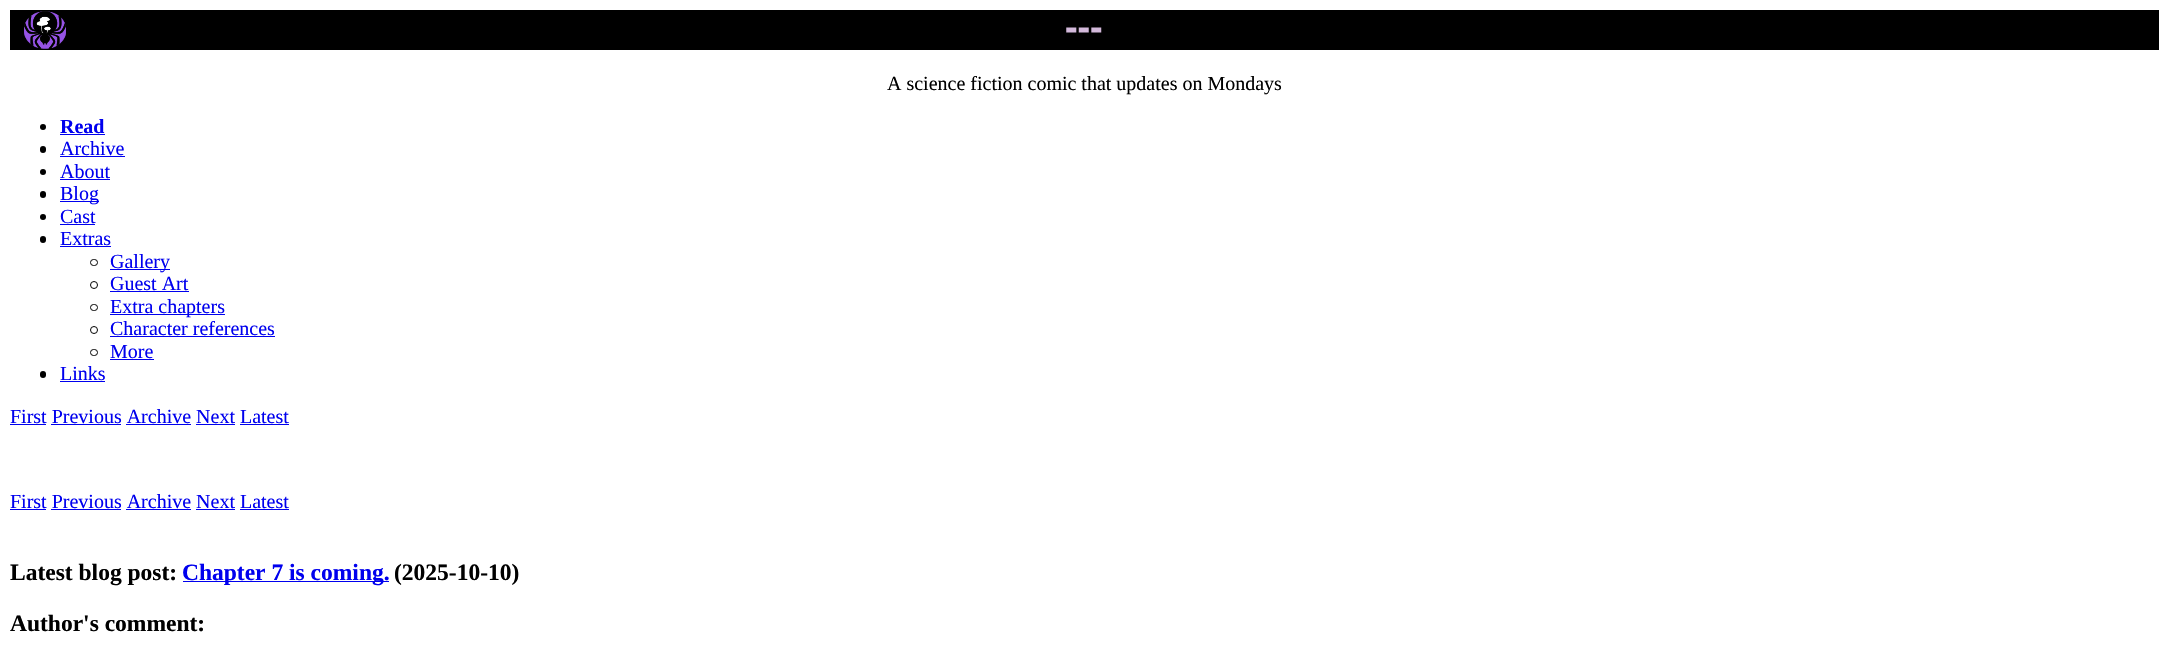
#include "include/core/SkBlurTypes.h"
#include "include/core/SkCanvas.h"
#include "include/core/SkData.h"
#include "include/core/SkFont.h"
#include "include/core/SkFontMgr.h"
#include "include/core/SkImage.h"
#include "include/core/SkMaskFilter.h"
#include "include/core/SkPaint.h"
#include "include/core/SkPathBuilder.h"
#include "include/core/SkTextBlob.h"
#include "include/effects/SkDashPathEffect.h"
#include "include/effects/SkGradientShader.h"
#include "include/utils/SkParsePath.h"

extern sk_sp<SkFontMgr> fontMgr;

static SkFont font(const char* family, int weight, float size, bool italic = false) {
    SkFontStyle style(weight, SkFontStyle::kNormal_Width,
        italic ? SkFontStyle::kItalic_Slant : SkFontStyle::kUpright_Slant);
    SkFont result(fontMgr->matchFamilyStyle(family, style), size);
    result.setSubpixel(true);
    return result;
}

static void drawLabel(SkCanvas* canvas, const char* s, float x, float y, const SkFont& font, SkColor color) {
    SkPaint ink(SkColor4f::FromColor(color));
    ink.setAntiAlias(true);
    canvas->drawString(s, x, y, font, ink);
}

static void fillRect(SkCanvas* canvas, float x, float y, float w, float h, SkColor color) {
    SkPaint ink(SkColor4f::FromColor(color));
    ink.setAntiAlias(true);
    canvas->drawRect(SkRect::MakeXYWH(x, y, w, h), ink);
}

static void fillRRect(SkCanvas* canvas, float x, float y, float w, float h, float radius, SkColor color) {
    SkPaint ink(SkColor4f::FromColor(color));
    ink.setAntiAlias(true);
    canvas->drawRoundRect(SkRect::MakeXYWH(x, y, w, h), radius, radius, ink);
}

static void drawPhoto(SkCanvas* canvas, const char* path, float x, float y, float w, float h) {
    auto image = SkImages::DeferredFromEncodedData(SkData::MakeFromFileName(path));
    canvas->drawImageRect(image, SkRect::MakeXYWH(x, y, w, h), SkSamplingOptions());
}

void draw(SkCanvas* canvas) {
    SkPaint paint;
    paint.setAntiAlias(true);
    canvas->clear(0xFFFFFFFF);
    fillRect(canvas, 10, 10, 2149, 40, 0xFF000000);
    drawPhoto(canvas, "assets/img1.png", 24, 11, 42, 38);
    drawPhoto(canvas, "assets/img2.png", 1066, 27, 36, 6);
    SkFont font1 = font("Liberation Serif", 400, 20);
    drawLabel(canvas, "A science fiction comic that updates on Mondays", 887, 90, font1, 0xFF000000);
    paint.setColor(0xFF000000);
    canvas->drawCircle(43, 127, 3, paint);
    SkFont font2 = font("Liberation Serif", 700, 20);
    drawLabel(canvas, "Read", 60, 133, font2, 0xFF0000EE);
    fillRect(canvas, 60, 134, 45, 1, 0xFF0000EE);
    fillRRect(canvas, 40, 146, 6, 7, 3, 0xFF000000);
    drawLabel(canvas, "Archive", 60, 155, font1, 0xFF0000EE);
    fillRect(canvas, 60, 156, 65, 1, 0xFF0000EE);
    canvas->drawCircle(43, 172, 3, paint);
    drawLabel(canvas, "About", 60, 178, font1, 0xFF0000EE);
    fillRect(canvas, 60, 179, 50, 1, 0xFF0000EE);
    fillRRect(canvas, 40, 191, 6, 7, 3, 0xFF000000);
    fillRect(canvas, 60, 201, 39, 1, 0xFF0000EE);
    drawLabel(canvas, "Blog", 60, 200, font1, 0xFF0000EE);
    canvas->drawCircle(43, 217, 3, paint);
    drawLabel(canvas, "Cast", 60, 223, font1, 0xFF0000EE);
    fillRect(canvas, 60, 224, 35, 1, 0xFF0000EE);
    fillRRect(canvas, 40, 236, 6, 7, 3, 0xFF000000);
    drawLabel(canvas, "Extras", 60, 245, font1, 0xFF0000EE);
    fillRect(canvas, 60, 246, 51, 1, 0xFF0000EE);
    paint.setStroke(true);
    paint.setStrokeWidth(1);
    canvas->drawRoundRect(SkRect::MakeXYWH(90.5f, 259.5f, 7, 6), 3, 3, paint);
    fillRect(canvas, 110, 269, 60, 1, 0xFF0000EE);
    drawLabel(canvas, "Gallery", 110, 268, font1, 0xFF0000EE);
    canvas->drawCircle(94, 285, 3.5f, paint);
    drawLabel(canvas, "Guest Art", 110, 290, font1, 0xFF0000EE);
    fillRect(canvas, 110, 291, 79, 1, 0xFF0000EE);
    canvas->drawRoundRect(SkRect::MakeXYWH(90.5f, 304.5f, 7, 6), 3, 3, paint);
    fillRect(canvas, 110, 314, 115, 1, 0xFF0000EE);
    drawLabel(canvas, "Extra chapters", 110, 313, font1, 0xFF0000EE);
    canvas->drawCircle(94, 330, 3.5f, paint);
    drawLabel(canvas, "Character references", 110, 335, font1, 0xFF0000EE);
    fillRect(canvas, 110, 336, 165, 1, 0xFF0000EE);
    canvas->drawRoundRect(SkRect::MakeXYWH(90.5f, 349.5f, 7, 6), 3, 3, paint);
    drawLabel(canvas, "More", 110, 358, font1, 0xFF0000EE);
    fillRect(canvas, 110, 359, 44, 1, 0xFF0000EE);
    fillRRect(canvas, 40, 371, 6, 7, 3, 0xFF000000);
    drawLabel(canvas, "Links", 60, 380, font1, 0xFF0000EE);
    fillRect(canvas, 60, 381, 45, 1, 0xFF0000EE);
    drawLabel(canvas, "First Previous Archive Next Latest", 10, 423, font1, 0xFF0000EE);
    fillRect(canvas, 10, 424, 36, 1, 0xFF0000EE);
    fillRect(canvas, 51, 424, 70, 1, 0xFF0000EE);
    fillRect(canvas, 126, 424, 65, 1, 0xFF0000EE);
    fillRect(canvas, 196, 424, 39, 1, 0xFF0000EE);
    fillRect(canvas, 240, 424, 49, 1, 0xFF0000EE);
    drawLabel(canvas, "First Previous Archive Next Latest", 10, 508, font1, 0xFF0000EE);
    fillRect(canvas, 10, 509, 36, 1, 0xFF0000EE);
    fillRect(canvas, 51, 509, 70, 1, 0xFF0000EE);
    fillRect(canvas, 126, 509, 65, 1, 0xFF0000EE);
    fillRect(canvas, 196, 509, 39, 1, 0xFF0000EE);
    fillRect(canvas, 240, 509, 49, 1, 0xFF0000EE);
    SkFont font3 = font("Liberation Serif", 700, 23.5f);
    drawLabel(canvas, "Latest blog post:", 10, 580, font3, 0xFF000000);
    fillRect(canvas, 183, 581, 206, 1, 0xFF0000EE);
    drawLabel(canvas, "Chapter 7 is coming.", 182, 580, font3, 0xFF0000EE);
    drawLabel(canvas, "(2025-10-10)", 394, 580, font3, 0xFF000000);
    drawLabel(canvas, "Author's comment:", 10, 631, font3, 0xFF000000);
}
